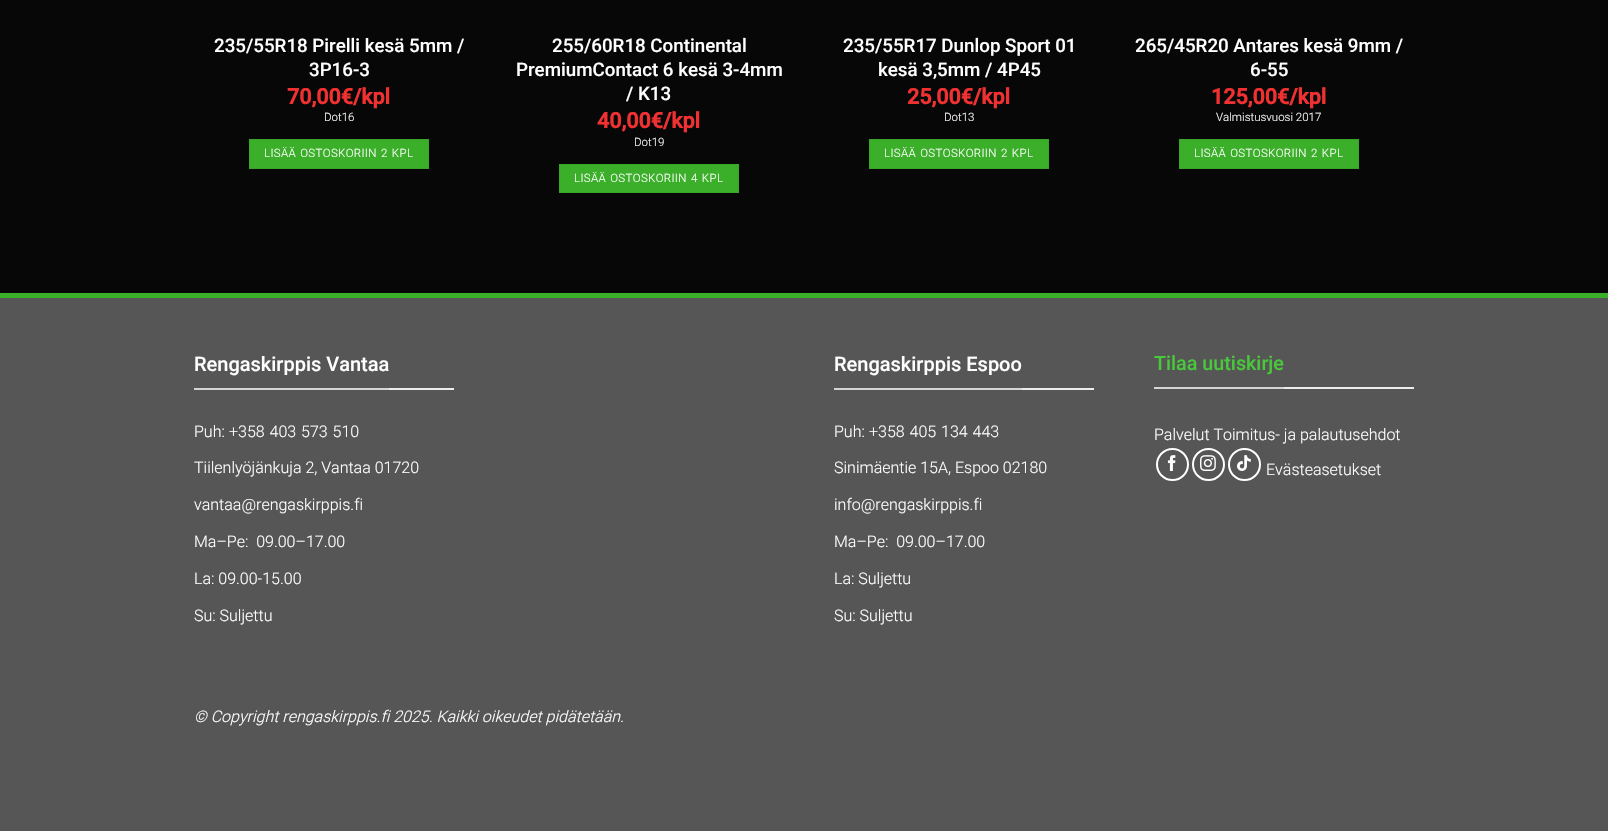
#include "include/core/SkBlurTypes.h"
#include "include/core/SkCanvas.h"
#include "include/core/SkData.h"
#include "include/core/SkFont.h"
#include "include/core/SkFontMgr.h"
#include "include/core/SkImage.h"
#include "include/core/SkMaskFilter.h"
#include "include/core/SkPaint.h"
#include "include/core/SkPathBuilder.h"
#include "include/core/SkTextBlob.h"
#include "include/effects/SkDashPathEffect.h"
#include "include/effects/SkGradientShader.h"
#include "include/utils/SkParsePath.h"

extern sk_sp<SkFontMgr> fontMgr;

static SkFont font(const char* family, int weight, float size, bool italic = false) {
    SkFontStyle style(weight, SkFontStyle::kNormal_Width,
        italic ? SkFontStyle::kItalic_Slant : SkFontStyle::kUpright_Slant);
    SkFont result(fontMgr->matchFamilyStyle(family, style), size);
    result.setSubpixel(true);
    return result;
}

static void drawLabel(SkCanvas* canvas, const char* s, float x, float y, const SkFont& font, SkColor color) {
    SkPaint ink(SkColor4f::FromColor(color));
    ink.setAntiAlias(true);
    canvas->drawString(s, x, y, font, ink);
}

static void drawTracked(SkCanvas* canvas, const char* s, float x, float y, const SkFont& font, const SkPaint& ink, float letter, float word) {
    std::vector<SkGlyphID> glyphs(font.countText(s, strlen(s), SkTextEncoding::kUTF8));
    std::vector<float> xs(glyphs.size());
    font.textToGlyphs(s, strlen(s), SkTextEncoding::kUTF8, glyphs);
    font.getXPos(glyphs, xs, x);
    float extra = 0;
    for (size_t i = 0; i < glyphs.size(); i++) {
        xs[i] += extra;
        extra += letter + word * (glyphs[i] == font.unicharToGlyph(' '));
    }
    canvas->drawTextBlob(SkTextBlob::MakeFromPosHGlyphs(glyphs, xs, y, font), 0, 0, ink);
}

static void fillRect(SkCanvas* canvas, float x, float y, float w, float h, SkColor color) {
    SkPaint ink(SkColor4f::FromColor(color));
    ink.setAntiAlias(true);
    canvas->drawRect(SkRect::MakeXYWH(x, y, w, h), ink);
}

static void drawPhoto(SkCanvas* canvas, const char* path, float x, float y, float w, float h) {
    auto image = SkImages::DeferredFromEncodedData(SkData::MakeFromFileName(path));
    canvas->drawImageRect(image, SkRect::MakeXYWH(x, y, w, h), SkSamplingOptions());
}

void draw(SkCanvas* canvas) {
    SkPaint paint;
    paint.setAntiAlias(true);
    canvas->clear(0xFF070707);
    SkFont font1 = font("Roboto", 500, 18.75f);
    drawLabel(canvas, "235/55R18 Pirelli kesä 5mm /", 214, 52, font1, 0xFFFFFFFF);
    drawLabel(canvas, "3P16-3", 309, 76, font1, 0xFFFFFFFF);
    SkFont font2 = font("Roboto", 700, 21.5f);
    drawLabel(canvas, "70,00€/kpl", 287, 104, font2, 0xFFF13131);
    SkFont font3 = font("Roboto", 300, 11.5f);
    drawLabel(canvas, "Dot16", 324, 121, font3, 0xFFFFFFFF);
    paint.setColor(0xFF3BAF29);
    canvas->drawRect(SkRect::MakeXYWH(249.5f, 139.5f, 179, 29), paint);
    paint.setStroke(true);
    paint.setStrokeWidth(1);
    paint.setColor(0xFF38A627);
    canvas->drawRect(SkRect::MakeXYWH(249.5f, 139.5f, 179, 29), paint);
    paint.setStroke(false);
    paint.setColor(0xFFFFFFFF);
    drawTracked(canvas, "LISÄÄ OSTOSKORIIN 2 KPL", 264, 157, font3, paint, 0.35f, 1);
    drawLabel(canvas, "255/60R18 Continental", 552, 52, font1, 0xFFFFFFFF);
    drawLabel(canvas, "PremiumContact 6 kesä 3-4mm", 516, 76, font1, 0xFFFFFFFF);
    drawLabel(canvas, "/ K13", 626, 100, font1, 0xFFFFFFFF);
    drawLabel(canvas, "40,00€/kpl", 597, 128, font2, 0xFFF13131);
    drawLabel(canvas, "Dot19", 634, 146, font3, 0xFFFFFFFF);
    paint.setColor(0xFF3BAF29);
    canvas->drawRect(SkRect::MakeXYWH(559.5f, 164.5f, 179, 28), paint);
    paint.setStroke(true);
    paint.setColor(0xFF38A627);
    canvas->drawRect(SkRect::MakeXYWH(559.5f, 164.5f, 179, 28), paint);
    paint.setStroke(false);
    paint.setColor(0xFFFFFFFF);
    drawTracked(canvas, "LISÄÄ OSTOSKORIIN 4 KPL", 574, 182, font3, paint, 0.35f, 1);
    drawLabel(canvas, "235/55R17 Dunlop Sport 01", 843, 52, font1, 0xFFFFFFFF);
    drawLabel(canvas, "kesä 3,5mm / 4P45", 878, 76, font1, 0xFFFFFFFF);
    drawLabel(canvas, "25,00€/kpl", 907, 104, font2, 0xFFF13131);
    drawLabel(canvas, "Dot13", 944, 121, font3, 0xFFFFFFFF);
    paint.setColor(0xFF3BAF29);
    canvas->drawRect(SkRect::MakeXYWH(869.5f, 139.5f, 179, 29), paint);
    paint.setStroke(true);
    paint.setColor(0xFF38A627);
    canvas->drawRect(SkRect::MakeXYWH(869.5f, 139.5f, 179, 29), paint);
    paint.setStroke(false);
    paint.setColor(0xFFFFFFFF);
    drawTracked(canvas, "LISÄÄ OSTOSKORIIN 2 KPL", 884, 157, font3, paint, 0.35f, 1);
    drawLabel(canvas, "265/45R20 Antares kesä 9mm /", 1135, 52, font1, 0xFFFFFFFF);
    drawLabel(canvas, "6-55", 1250, 76, font1, 0xFFFFFFFF);
    drawLabel(canvas, "125,00€/kpl", 1211, 104, font2, 0xFFF13131);
    drawLabel(canvas, "Valmistusvuosi 2017", 1216, 121, font3, 0xFFFFFFFF);
    paint.setColor(0xFF3BAF29);
    canvas->drawRect(SkRect::MakeXYWH(1179.5f, 139.5f, 179, 29), paint);
    paint.setStroke(true);
    paint.setColor(0xFF38A627);
    canvas->drawRect(SkRect::MakeXYWH(1179.5f, 139.5f, 179, 29), paint);
    paint.setStroke(false);
    paint.setColor(0xFFFFFFFF);
    drawTracked(canvas, "LISÄÄ OSTOSKORIIN 2 KPL", 1194, 157, font3, paint, 0.35f, 1);
    fillRect(canvas, 0, 293, 1608, 5, 0xFF3BAF29);
    fillRect(canvas, 0, 298, 1608, 533, 0xFF565656);
    fillRect(canvas, 389, 388, 65, 2, 0xFFECECEC);
    fillRect(canvas, 194, 388, 195, 2, 0xFFD4D4D4);
    SkFont font4 = font("Roboto", 500, 20);
    drawLabel(canvas, "Rengaskirppis Vantaa", 194, 371, font4, 0xFFFFFFFF);
    SkFont font5 = font("Roboto", 300, 16);
    drawLabel(canvas, "Puh:", 194, 437, font5, 0xFFFFFFFF);
    drawTracked(canvas, "+358 403 573 510", 229, 437, font5, paint, 0, 1);
    drawLabel(canvas, "Tiilenlyöjänkuja 2, Vantaa 01720", 194, 473, font5, 0xFFFFFFFF);
    drawLabel(canvas, "vantaa@rengaskirppis.fi", 194, 510, font5, 0xFFFFFFFF);
    drawLabel(canvas, "Ma–Pe:  09.00–17.00", 194, 547, font5, 0xFFFFFFFF);
    drawLabel(canvas, "La: 09.00-15.00", 194, 584, font5, 0xFFFFFFFF);
    drawLabel(canvas, "Su: Suljettu", 194, 621, font5, 0xFFFFFFFF);
    fillRect(canvas, 1022, 388, 72, 2, 0xFFECECEC);
    fillRect(canvas, 834, 388, 188, 2, 0xFFD4D4D4);
    drawLabel(canvas, "Rengaskirppis Espoo", 834, 371, font4, 0xFFFFFFFF);
    drawLabel(canvas, "Puh:", 834, 437, font5, 0xFFFFFFFF);
    drawTracked(canvas, "+358 405 134 443", 869, 437, font5, paint, 0, 1);
    drawLabel(canvas, "Sinimäentie 15A, Espoo 02180", 834, 473, font5, 0xFFFFFFFF);
    drawLabel(canvas, "info@rengaskirppis.fi", 834, 510, font5, 0xFFFFFFFF);
    drawLabel(canvas, "Ma–Pe:  09.00–17.00", 834, 547, font5, 0xFFFFFFFF);
    drawLabel(canvas, "La: Suljettu", 834, 584, font5, 0xFFFFFFFF);
    drawLabel(canvas, "Su: Suljettu", 834, 621, font5, 0xFFFFFFFF);
    fillRect(canvas, 1284, 387, 130, 2, 0xFFECECEC);
    fillRect(canvas, 1154, 387, 130, 2, 0xFFD4D4D4);
    SkFont font6 = font("Roboto", 500, 19.75f);
    drawLabel(canvas, "Tilaa uutiskirje", 1154, 370, font6, 0xFF48C83A);
    drawLabel(canvas, "Palvelut Toimitus- ja palautusehdot", 1154, 440, font5, 0xFFFFFFFF);
    paint.setStroke(true);
    paint.setStrokeWidth(2);
    canvas->drawCircle(1172.5f, 464.5f, 15.5f, paint);
    drawPhoto(canvas, "assets/img1.png", 1167, 455, 9, 16);
    canvas->drawCircle(1208.5f, 464.5f, 15.5f, paint);
    drawPhoto(canvas, "assets/img2.png", 1200, 455, 16, 16);
    canvas->drawCircle(1244.5f, 464.5f, 15.5f, paint);
    drawPhoto(canvas, "assets/img3.png", 1237, 455, 14, 16);
    drawLabel(canvas, "Evästeasetukset", 1266, 475, font5, 0xFFFFFFFF);
    SkFont font7 = font("Roboto", 300, 16, true);
    drawLabel(canvas, "© Copyright rengaskirppis.fi 2025. Kaikki oikeudet pidätetään.", 194, 722, font7, 0xFFFFFFFF);
}
